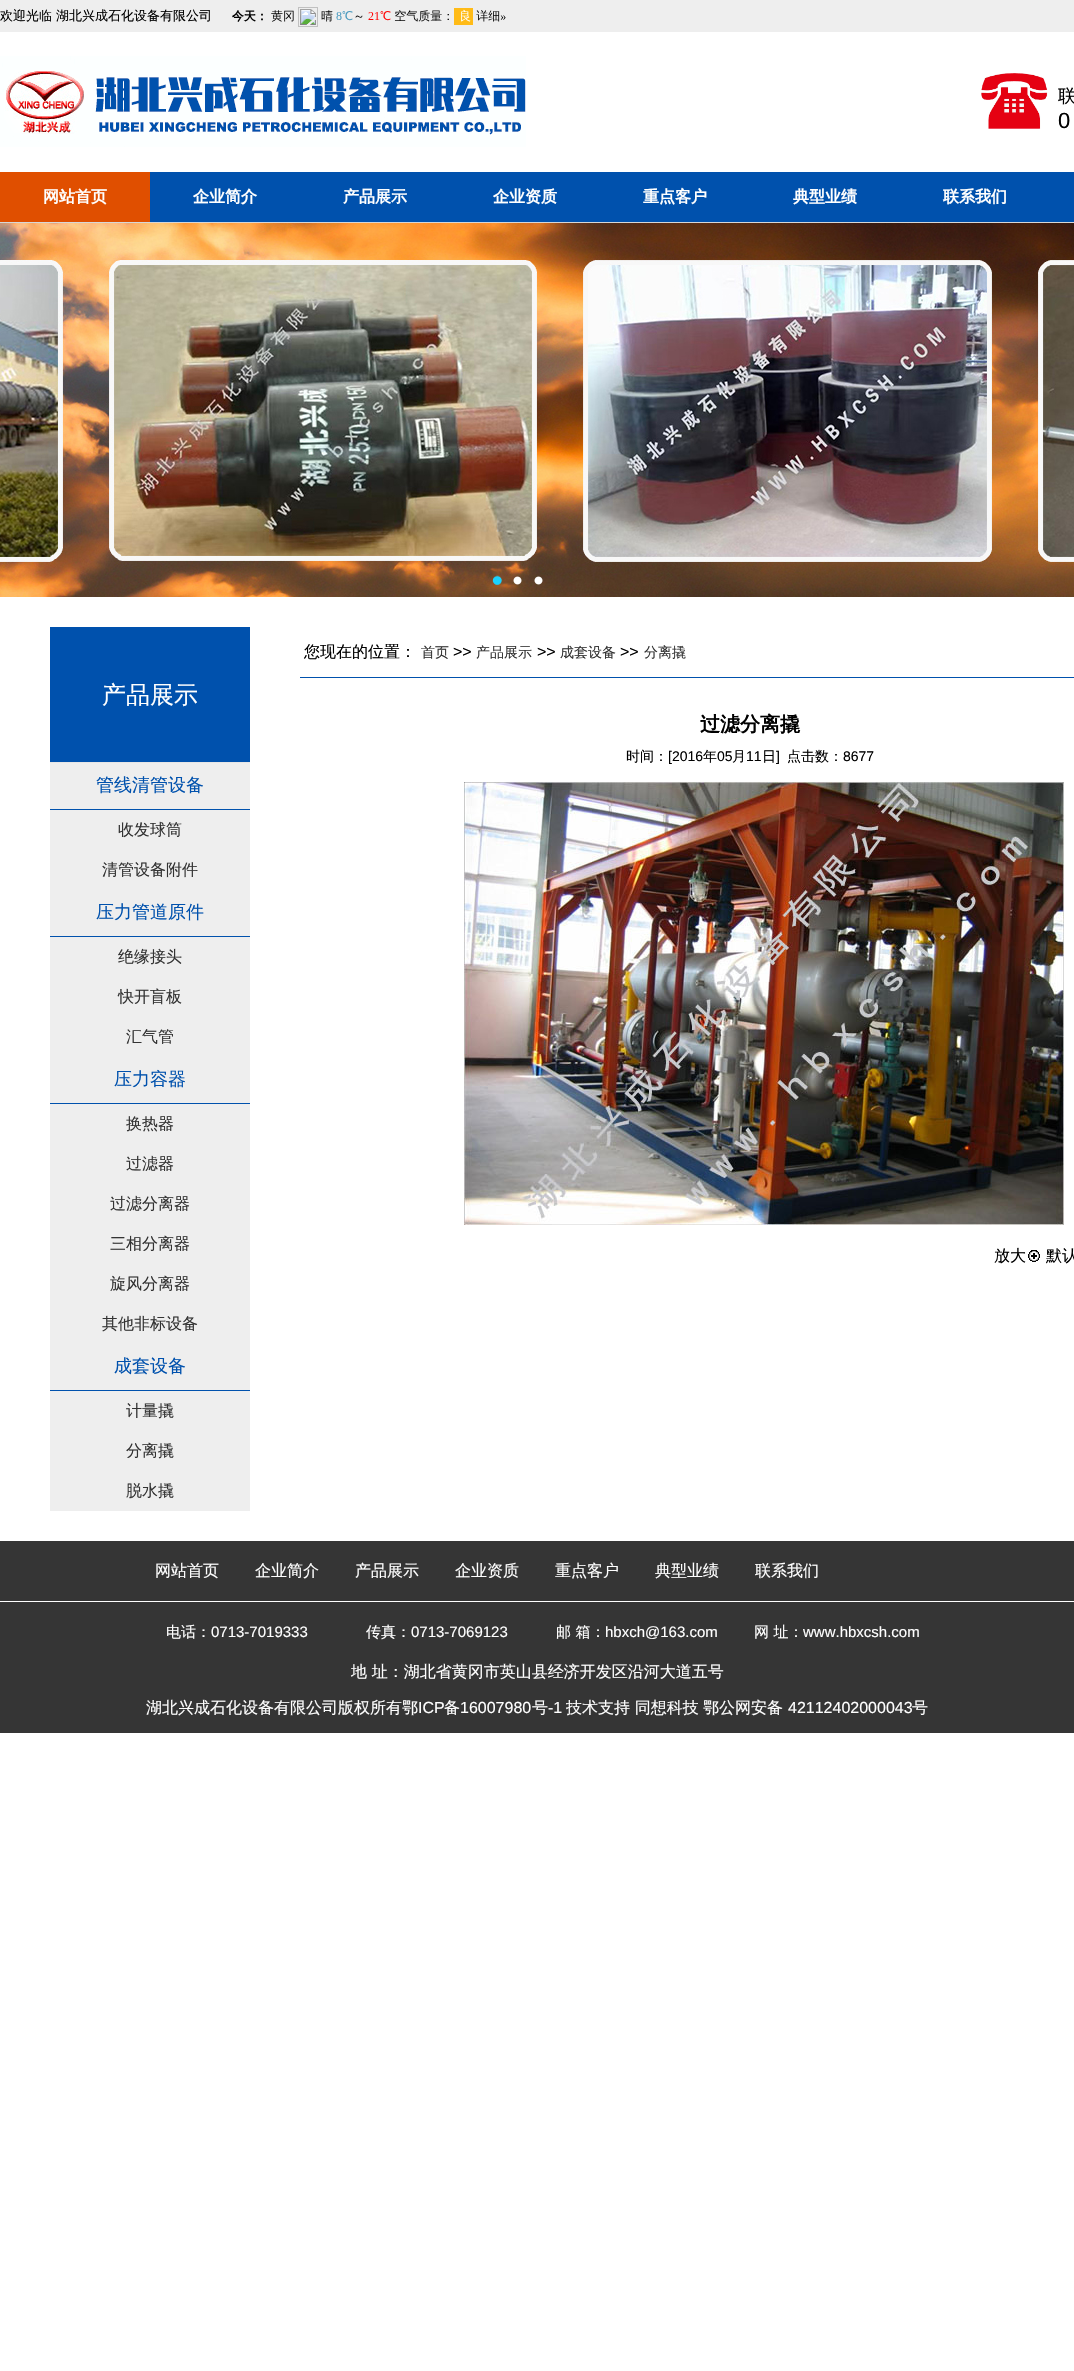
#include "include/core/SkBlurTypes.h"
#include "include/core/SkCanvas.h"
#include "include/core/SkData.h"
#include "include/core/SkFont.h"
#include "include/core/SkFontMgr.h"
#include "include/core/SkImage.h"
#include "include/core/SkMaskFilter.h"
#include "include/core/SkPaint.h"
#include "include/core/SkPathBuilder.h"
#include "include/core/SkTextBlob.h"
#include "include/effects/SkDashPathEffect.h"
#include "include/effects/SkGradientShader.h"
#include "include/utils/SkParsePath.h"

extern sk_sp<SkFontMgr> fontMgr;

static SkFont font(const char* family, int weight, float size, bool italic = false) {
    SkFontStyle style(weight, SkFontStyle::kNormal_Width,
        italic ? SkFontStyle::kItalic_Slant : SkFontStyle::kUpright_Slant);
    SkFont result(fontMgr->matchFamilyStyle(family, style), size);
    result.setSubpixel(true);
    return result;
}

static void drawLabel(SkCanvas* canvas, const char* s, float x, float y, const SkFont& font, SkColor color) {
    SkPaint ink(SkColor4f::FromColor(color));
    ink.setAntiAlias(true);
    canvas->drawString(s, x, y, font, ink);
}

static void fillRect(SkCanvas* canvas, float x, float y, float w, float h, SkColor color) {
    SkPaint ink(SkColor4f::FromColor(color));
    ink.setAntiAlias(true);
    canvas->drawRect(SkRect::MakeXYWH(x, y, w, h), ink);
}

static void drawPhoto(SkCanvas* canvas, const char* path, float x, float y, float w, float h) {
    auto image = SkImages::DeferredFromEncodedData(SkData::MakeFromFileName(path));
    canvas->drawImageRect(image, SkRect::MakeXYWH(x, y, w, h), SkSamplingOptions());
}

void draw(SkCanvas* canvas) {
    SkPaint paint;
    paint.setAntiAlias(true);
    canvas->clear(0xFFFFFFFF);
    fillRect(canvas, 0, 0, 1074, 32, 0xFFEEEEEE);
    SkFont font1 = font("WenQuanYi Zen Hei", 500, 13);
    drawLabel(canvas, "欢迎光临 湖北兴成石化设备有限公司", 0, 20, font1, 0xFF000000);
    drawPhoto(canvas, "assets/img1.png", 232, 7, 274, 20);
    drawPhoto(canvas, "assets/img2.png", 0, 56, 526, 91);
    drawPhoto(canvas, "assets/img3.png", 981, 73, 67, 56);
    SkFont font2 = font("WenQuanYi Zen Hei", 500, 18);
    drawLabel(canvas, "联", 1058, 102, font2, 0xFF000000);
    SkFont font3 = font("Liberation Sans", 400, 22);
    drawLabel(canvas, "0", 1058, 128, font3, 0xFF000000);
    fillRect(canvas, 150, 172, 924, 50, 0xFF0051AD);
    fillRect(canvas, 0, 172, 150, 50, 0xFFE04F00);
    SkFont font4 = font("WenQuanYi Zen Hei", 700, 16);
    drawLabel(canvas, "网站首页", 43, 202, font4, 0xFFFFFFFF);
    drawLabel(canvas, "企业简介", 193, 202, font4, 0xFFFFFFFF);
    drawLabel(canvas, "产品展示", 343, 202, font4, 0xFFFFFFFF);
    drawLabel(canvas, "企业资质", 493, 202, font4, 0xFFFFFFFF);
    drawLabel(canvas, "重点客户", 643, 202, font4, 0xFFFFFFFF);
    drawLabel(canvas, "典型业绩", 793, 202, font4, 0xFFFFFFFF);
    drawLabel(canvas, "联系我们", 943, 202, font4, 0xFFFFFFFF);
    fillRect(canvas, 0, 222, 1074, 1, 0xFFD7D7D7);
    drawPhoto(canvas, "assets/img4.png", 0, 223, 1074, 374);
    drawPhoto(canvas, "assets/img5.png", 492, 575, 10, 10);
    drawPhoto(canvas, "assets/img6.png", 513, 576, 9, 9);
    drawPhoto(canvas, "assets/img7.png", 534, 576, 9, 9);
    fillRect(canvas, 50, 763, 200, 748, 0xFFEEEEEE);
    fillRect(canvas, 50, 627, 200, 135, 0xFF0051AD);
    fillRect(canvas, 50, 762, 200, 1, 0xFFE6E6E6);
    SkFont font5 = font("WenQuanYi Zen Hei", 500, 24);
    drawLabel(canvas, "产品展示", 102, 703, font5, 0xFFFFFFFF);
    fillRect(canvas, 50, 809, 200, 1, 0xFF0051AD);
    drawLabel(canvas, "管线清管设备", 96, 791, font2, 0xFF0051AD);
    SkFont font6 = font("WenQuanYi Zen Hei", 500, 16);
    drawLabel(canvas, "收发球筒", 118, 835, font6, 0xFF333333);
    drawLabel(canvas, "清管设备附件", 102, 875, font6, 0xFF333333);
    fillRect(canvas, 50, 936, 200, 1, 0xFF0051AD);
    drawLabel(canvas, "压力管道原件", 96, 918, font2, 0xFF0051AD);
    drawLabel(canvas, "绝缘接头", 118, 962, font6, 0xFF333333);
    drawLabel(canvas, "快开盲板", 118, 1002, font6, 0xFF333333);
    drawLabel(canvas, "汇气管", 126, 1042, font6, 0xFF333333);
    fillRect(canvas, 50, 1103, 200, 1, 0xFF0051AD);
    drawLabel(canvas, "压力容器", 114, 1085, font2, 0xFF0051AD);
    drawLabel(canvas, "换热器", 126, 1129, font6, 0xFF333333);
    drawLabel(canvas, "过滤器", 126, 1169, font6, 0xFF333333);
    drawLabel(canvas, "过滤分离器", 110, 1209, font6, 0xFF333333);
    drawLabel(canvas, "三相分离器", 110, 1249, font6, 0xFF333333);
    drawLabel(canvas, "旋风分离器", 110, 1289, font6, 0xFF333333);
    drawLabel(canvas, "其他非标设备", 102, 1329, font6, 0xFF333333);
    fillRect(canvas, 50, 1390, 200, 1, 0xFF0051AD);
    drawLabel(canvas, "成套设备", 114, 1372, font2, 0xFF0051AD);
    drawLabel(canvas, "计量撬", 126, 1416, font6, 0xFF333333);
    drawLabel(canvas, "分离撬", 126, 1456, font6, 0xFF333333);
    drawLabel(canvas, "脱水撬", 126, 1496, font6, 0xFF333333);
    fillRect(canvas, 300, 677, 774, 1, 0xFF0051AD);
    drawLabel(canvas, "您现在的位置：", 304, 657, font6, 0xFF000000);
    SkFont font7 = font("WenQuanYi Zen Hei", 500, 14);
    drawLabel(canvas, "首页", 421, 657, font7, 0xFF333333);
    SkFont font8 = font("Liberation Sans", 400, 16);
    drawLabel(canvas, ">>", 453, 657, font8, 0xFF000000);
    drawLabel(canvas, "产品展示", 476, 657, font7, 0xFF333333);
    drawLabel(canvas, ">>", 537, 657, font8, 0xFF000000);
    drawLabel(canvas, "成套设备", 560, 657, font7, 0xFF333333);
    drawLabel(canvas, ">>", 620, 657, font8, 0xFF000000);
    drawLabel(canvas, "分离撬", 644, 657, font7, 0xFF333333);
    SkFont font9 = font("WenQuanYi Zen Hei", 700, 20);
    drawLabel(canvas, "过滤分离撬", 700, 731, font9, 0xFF000000);
    drawLabel(canvas, "时间：", 626, 761, font7, 0xFF000000);
    SkFont font10 = font("Liberation Sans", 400, 14);
    drawLabel(canvas, "[2016", 668, 761, font10, 0xFF000000);
    drawLabel(canvas, "年", 703, 761, font7, 0xFF000000);
    drawLabel(canvas, "05", 717, 761, font10, 0xFF000000);
    drawLabel(canvas, "月", 732, 761, font7, 0xFF000000);
    drawLabel(canvas, "11", 746, 761, font10, 0xFF000000);
    drawLabel(canvas, "日", 762, 761, font7, 0xFF000000);
    drawLabel(canvas, "]", 776, 761, font10, 0xFF000000);
    drawLabel(canvas, "点击数：", 787, 761, font7, 0xFF000000);
    drawLabel(canvas, "8677", 843, 761, font10, 0xFF000000);
    drawPhoto(canvas, "assets/img8.png", 464, 782, 600, 443);
    drawLabel(canvas, "放大", 994, 1261, font6, 0xFF000000);
    drawPhoto(canvas, "assets/img9.png", 1028, 1250, 12, 12);
    drawLabel(canvas, "默认", 1046, 1261, font6, 0xFF000000);
    fillRect(canvas, 0, 1541, 1074, 192, 0xFF353535);
    fillRect(canvas, 0, 1601, 1074, 1, 0xFFFFFFFF);
    drawLabel(canvas, "网站首页", 155, 1576, font6, 0xFFFFFFFF);
    drawLabel(canvas, "企业简介", 255, 1576, font6, 0xFFFFFFFF);
    drawLabel(canvas, "产品展示", 355, 1576, font6, 0xFFFFFFFF);
    drawLabel(canvas, "企业资质", 455, 1576, font6, 0xFFFFFFFF);
    drawLabel(canvas, "重点客户", 555, 1576, font6, 0xFFFFFFFF);
    drawLabel(canvas, "典型业绩", 655, 1576, font6, 0xFFFFFFFF);
    drawLabel(canvas, "联系我们", 755, 1576, font6, 0xFFFFFFFF);
    SkFont font11 = font("WenQuanYi Zen Hei", 500, 15);
    drawLabel(canvas, "电话：", 166, 1637, font11, 0xFFFFFFFF);
    SkFont font12 = font("Liberation Sans", 400, 15);
    drawLabel(canvas, "0713-7019333", 211, 1637, font12, 0xFFFFFFFF);
    drawLabel(canvas, "传真：", 366, 1637, font11, 0xFFFFFFFF);
    drawLabel(canvas, "0713-7069123", 411, 1637, font12, 0xFFFFFFFF);
    drawLabel(canvas, "邮 箱：", 556, 1637, font11, 0xFFFFFFFF);
    drawLabel(canvas, "hbxch@163.com", 605, 1637, font12, 0xFFFFFFFF);
    drawLabel(canvas, "网 址：", 754, 1637, font11, 0xFFFFFFFF);
    drawLabel(canvas, "www.hbxcsh.com", 803, 1637, font12, 0xFFFFFFFF);
    drawLabel(canvas, "地 址：湖北省黄冈市英山县经济开发区沿河大道五号", 351, 1677, font6, 0xFFFFFFFF);
    drawLabel(canvas, "湖北兴成石化设备有限公司版权所有鄂", 146, 1713, font6, 0xFFFFFFFF);
    drawLabel(canvas, "ICP", 418, 1713, font8, 0xFFFFFFFF);
    drawLabel(canvas, "备", 444, 1713, font6, 0xFFFFFFFF);
    drawLabel(canvas, "16007980", 460, 1713, font8, 0xFFFFFFFF);
    drawLabel(canvas, "号", 532, 1713, font6, 0xFFFFFFFF);
    drawLabel(canvas, "-1", 548, 1713, font8, 0xFFFFFFFF);
    drawLabel(canvas, "技术支持 同想科技", 566, 1713, font6, 0xFFFFFFFF);
    drawLabel(canvas, "鄂公网安备", 703, 1713, font6, 0xFFFFFFFF);
    drawLabel(canvas, "42112402000043", 788, 1713, font8, 0xFFFFFFFF);
    drawLabel(canvas, "号", 912, 1713, font6, 0xFFFFFFFF);
}
